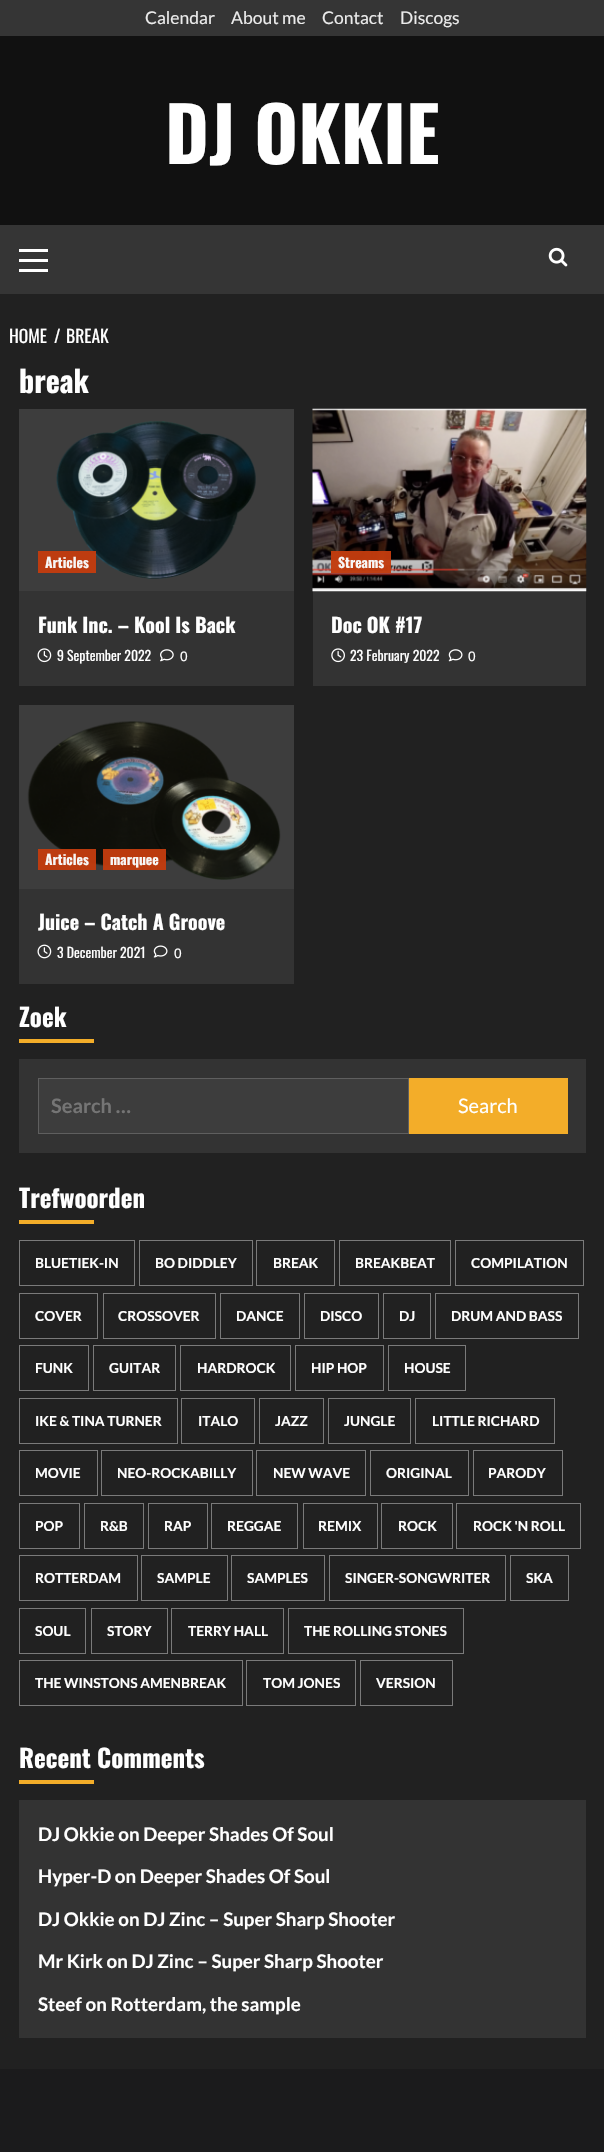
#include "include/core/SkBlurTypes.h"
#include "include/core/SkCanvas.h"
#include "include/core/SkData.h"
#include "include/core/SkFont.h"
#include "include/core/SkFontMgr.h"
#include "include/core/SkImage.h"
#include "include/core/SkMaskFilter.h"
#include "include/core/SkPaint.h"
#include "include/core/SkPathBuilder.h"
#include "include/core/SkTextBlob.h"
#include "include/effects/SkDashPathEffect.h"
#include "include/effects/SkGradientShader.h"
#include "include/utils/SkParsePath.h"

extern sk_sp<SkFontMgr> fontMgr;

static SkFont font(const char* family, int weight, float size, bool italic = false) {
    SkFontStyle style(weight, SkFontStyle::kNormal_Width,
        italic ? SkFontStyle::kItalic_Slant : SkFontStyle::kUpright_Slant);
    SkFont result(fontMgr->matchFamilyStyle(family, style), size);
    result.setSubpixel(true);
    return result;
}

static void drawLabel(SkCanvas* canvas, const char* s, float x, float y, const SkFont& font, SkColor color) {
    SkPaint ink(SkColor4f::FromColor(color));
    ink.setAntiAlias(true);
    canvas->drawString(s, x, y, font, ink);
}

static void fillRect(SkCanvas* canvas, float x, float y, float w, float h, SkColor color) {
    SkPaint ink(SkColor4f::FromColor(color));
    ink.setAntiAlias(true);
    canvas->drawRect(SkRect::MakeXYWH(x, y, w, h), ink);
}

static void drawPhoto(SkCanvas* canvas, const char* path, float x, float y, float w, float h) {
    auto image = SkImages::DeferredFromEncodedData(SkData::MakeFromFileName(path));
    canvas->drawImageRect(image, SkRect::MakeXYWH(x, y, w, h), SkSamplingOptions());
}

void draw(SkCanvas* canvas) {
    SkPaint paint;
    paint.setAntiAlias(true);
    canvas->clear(0xFF212121);
    fillRect(canvas, 0, 0, 604, 36, 0xFF353535);
    SkFont font1 = font("Lato", 400, 17.5f);
    drawLabel(canvas, "Calendar", 145, 24, font1, 0xFFEBEBEB);
    drawLabel(canvas, "About me", 231, 24, font1, 0xFFEBEBEB);
    drawLabel(canvas, "Contact", 322, 24, font1, 0xFFEBEBEB);
    drawLabel(canvas, "Discogs", 400, 24, font1, 0xFFEBEBEB);
    fillRect(canvas, 0, 36, 604, 189, 0xFF111111);
    SkFont font2 = font("Oswald", 700, 75);
    drawLabel(canvas, "DJ OKKIE", 165, 164, font2, 0xFFFFFFFF);
    fillRect(canvas, 0, 225, 604, 69, 0xFF353535);
    fillRect(canvas, 19, 259, 29, 3, 0xFFFFFFFF);
    fillRect(canvas, 19, 249, 29, 3, 0xFFFFFFFF);
    fillRect(canvas, 19, 269, 29, 3, 0xFFFFFFFF);
    drawPhoto(canvas, "assets/img1.png", 548, 247, 20, 20);
    SkFont font3 = font("Oswald", 400, 17.5f);
    drawLabel(canvas, "HOME", 9, 343, font3, 0xFFFFFFFF);
    drawLabel(canvas, "/", 54, 343, font3, 0xFFFFFFFF);
    drawLabel(canvas, "BREAK", 66, 343, font3, 0xFFFFFFFF);
    SkFont font4 = font("Oswald", 700, 30);
    drawLabel(canvas, "break", 19, 393, font4, 0xFFFFFFFF);
    fillRect(canvas, 19, 591, 275, 95, 0xFF333333);
    fillRect(canvas, 19, 409, 275, 182, 0xFF3D3D3D);
    drawPhoto(canvas, "assets/img2.png", 56, 421, 200, 158);
    fillRect(canvas, 38, 551, 58, 22, 0xF5C23B0E);
    SkFont font5 = font("Oswald", 700, 13.75f);
    drawLabel(canvas, "Articles", 45, 568, font5, 0xFFF7F7F7);
    SkFont font6 = font("Oswald", 700, 20);
    drawLabel(canvas, "Funk Inc. – Kool Is Back", 38, 633, font6, 0xFFFFFFFF);
    drawPhoto(canvas, "assets/img3.png", 37, 648, 15, 15);
    SkFont font7 = font("Oswald", 400, 13.75f);
    drawLabel(canvas, "9 September 2022", 57, 661, font7, 0xFFFFFFFF);
    drawPhoto(canvas, "assets/img4.png", 160, 649, 14, 13);
    SkFont font8 = font("Liberation Sans", 400, 13.75f);
    drawLabel(canvas, "0", 180, 661, font8, 0xFFFFFFFF);
    fillRect(canvas, 313, 591, 273, 95, 0xFF333333);
    drawPhoto(canvas, "assets/img5.png", 312, 408, 275, 184);
    fillRect(canvas, 331, 551, 60, 22, 0xF5C23B0E);
    drawLabel(canvas, "Streams", 338, 568, font5, 0xFFF7F7F7);
    drawLabel(canvas, "Doc OK #17", 331, 633, font6, 0xFFFFFFFF);
    drawPhoto(canvas, "assets/img6.png", 331, 648, 14, 15);
    drawLabel(canvas, "23 February 2022", 350, 661, font7, 0xFFFFFFFF);
    drawPhoto(canvas, "assets/img7.png", 448, 649, 15, 13);
    drawLabel(canvas, "0", 468, 661, font8, 0xFFFFFFFF);
    fillRect(canvas, 19, 889, 275, 95, 0xFF333333);
    fillRect(canvas, 19, 705, 275, 184, 0xFF3D3D3D);
    drawPhoto(canvas, "assets/img8.png", 27, 721, 254, 159);
    fillRect(canvas, 38, 849, 58, 21, 0xF5C23B0E);
    drawLabel(canvas, "Articles", 45, 865, font5, 0xFFF7F7F7);
    fillRect(canvas, 103, 849, 63, 21, 0xF5C23B0E);
    drawLabel(canvas, "marquee", 110, 865, font5, 0xFFF7F7F7);
    drawLabel(canvas, "Juice – Catch A Groove", 38, 930, font6, 0xFFFFFFFF);
    drawPhoto(canvas, "assets/img9.png", 37, 944, 15, 15);
    drawLabel(canvas, "3 December 2021", 57, 958, font7, 0xFFFFFFFF);
    drawPhoto(canvas, "assets/img10.png", 153, 945, 15, 13);
    drawLabel(canvas, "0", 174, 958, font8, 0xFFFFFFFF);
    SkFont font9 = font("Oswald", 700, 25);
    drawLabel(canvas, "Zoek", 19, 1027, font9, 0xFFFFFFFF);
    fillRect(canvas, 19, 1039, 75, 4, 0xFFF3AD29);
    fillRect(canvas, 19, 1059, 567, 94, 0xFF333333);
    paint.setColor(0xFF3D3D3D);
    canvas->drawRect(SkRect::MakeXYWH(38.5f, 1078.5f, 370, 55), paint);
    paint.setStroke(true);
    paint.setStrokeWidth(1);
    paint.setColor(0xFF5F5F5F);
    canvas->drawRect(SkRect::MakeXYWH(38.5f, 1078.5f, 370, 55), paint);
    SkFont font10 = font("Lato", 700, 20);
    drawLabel(canvas, "Search …", 51, 1113, font10, 0xFF757575);
    fillRect(canvas, 409, 1078, 159, 56, 0xFFF3AD29);
    SkFont font11 = font("Lato", 400, 20);
    drawLabel(canvas, "Search", 458, 1113, font11, 0xFFFFFFFF);
    drawLabel(canvas, "Trefwoorden", 19, 1208, font9, 0xFFFFFFFF);
    fillRect(canvas, 19, 1220, 75, 4, 0xFFF3AD29);
    paint.setColor(0xFF7A7A7A);
    canvas->drawRect(SkRect::MakeXYWH(19.5f, 1240.5f, 115, 45), paint);
    SkFont font12 = font("Lato", 700, 13.75f);
    drawLabel(canvas, "BLUETIEK-IN", 35, 1268, font12, 0xFFFFFFFF);
    canvas->drawRect(SkRect::MakeXYWH(139.5f, 1240.5f, 113, 45), paint);
    drawLabel(canvas, "BO DIDDLEY", 155, 1268, font12, 0xFFFFFFFF);
    canvas->drawRect(SkRect::MakeXYWH(256.5f, 1240.5f, 78, 45), paint);
    drawLabel(canvas, "BREAK", 273, 1268, font12, 0xFFFFFFFF);
    canvas->drawRect(SkRect::MakeXYWH(339.5f, 1240.5f, 111, 45), paint);
    drawLabel(canvas, "BREAKBEAT", 355, 1268, font12, 0xFFFFFFFF);
    canvas->drawRect(SkRect::MakeXYWH(455.5f, 1240.5f, 128, 45), paint);
    drawLabel(canvas, "COMPILATION", 471, 1268, font12, 0xFFFFFFFF);
    canvas->drawRect(SkRect::MakeXYWH(19.5f, 1293.5f, 78, 45), paint);
    drawLabel(canvas, "COVER", 35, 1321, font12, 0xFFFFFFFF);
    canvas->drawRect(SkRect::MakeXYWH(103.5f, 1293.5f, 112, 45), paint);
    drawLabel(canvas, "CROSSOVER", 118, 1321, font12, 0xFFFFFFFF);
    canvas->drawRect(SkRect::MakeXYWH(220.5f, 1293.5f, 79, 45), paint);
    drawLabel(canvas, "DANCE", 236, 1321, font12, 0xFFFFFFFF);
    canvas->drawRect(SkRect::MakeXYWH(304.5f, 1293.5f, 74, 45), paint);
    drawLabel(canvas, "DISCO", 320, 1321, font12, 0xFFFFFFFF);
    canvas->drawRect(SkRect::MakeXYWH(383.5f, 1293.5f, 47, 45), paint);
    drawLabel(canvas, "DJ", 399, 1321, font12, 0xFFFFFFFF);
    canvas->drawRect(SkRect::MakeXYWH(435.5f, 1293.5f, 143, 45), paint);
    drawLabel(canvas, "DRUM AND BASS", 451, 1321, font12, 0xFFFFFFFF);
    canvas->drawRect(SkRect::MakeXYWH(19.5f, 1345.5f, 69, 45), paint);
    drawLabel(canvas, "FUNK", 35, 1373, font12, 0xFFFFFFFF);
    canvas->drawRect(SkRect::MakeXYWH(93.5f, 1345.5f, 82, 45), paint);
    drawLabel(canvas, "GUITAR", 109, 1373, font12, 0xFFFFFFFF);
    canvas->drawRect(SkRect::MakeXYWH(180.5f, 1345.5f, 110, 45), paint);
    drawLabel(canvas, "HARDROCK", 197, 1373, font12, 0xFFFFFFFF);
    canvas->drawRect(SkRect::MakeXYWH(295.5f, 1345.5f, 88, 45), paint);
    drawLabel(canvas, "HIP HOP", 311, 1373, font12, 0xFFFFFFFF);
    canvas->drawRect(SkRect::MakeXYWH(388.5f, 1345.5f, 77, 45), paint);
    drawLabel(canvas, "HOUSE", 404, 1373, font12, 0xFFFFFFFF);
    canvas->drawRect(SkRect::MakeXYWH(19.5f, 1398.5f, 158, 45), paint);
    drawLabel(canvas, "IKE & TINA TURNER", 35, 1426, font12, 0xFFFFFFFF);
    canvas->drawRect(SkRect::MakeXYWH(181.5f, 1398.5f, 73, 45), paint);
    drawLabel(canvas, "ITALO", 198, 1426, font12, 0xFFFFFFFF);
    canvas->drawRect(SkRect::MakeXYWH(259.5f, 1398.5f, 64, 45), paint);
    drawLabel(canvas, "JAZZ", 275, 1426, font12, 0xFFFFFFFF);
    canvas->drawRect(SkRect::MakeXYWH(328.5f, 1398.5f, 82, 45), paint);
    drawLabel(canvas, "JUNGLE", 344, 1426, font12, 0xFFFFFFFF);
    canvas->drawRect(SkRect::MakeXYWH(415.5f, 1398.5f, 139, 45), paint);
    drawLabel(canvas, "LITTLE RICHARD", 432, 1426, font12, 0xFFFFFFFF);
    canvas->drawRect(SkRect::MakeXYWH(19.5f, 1450.5f, 78, 45), paint);
    drawLabel(canvas, "MOVIE", 35, 1478, font12, 0xFFFFFFFF);
    canvas->drawRect(SkRect::MakeXYWH(101.5f, 1450.5f, 151, 45), paint);
    drawLabel(canvas, "NEO-ROCKABILLY", 117, 1478, font12, 0xFFFFFFFF);
    canvas->drawRect(SkRect::MakeXYWH(256.5f, 1450.5f, 109, 45), paint);
    drawLabel(canvas, "NEW WAVE", 273, 1478, font12, 0xFFFFFFFF);
    canvas->drawRect(SkRect::MakeXYWH(370.5f, 1450.5f, 98, 45), paint);
    drawLabel(canvas, "ORIGINAL", 386, 1478, font12, 0xFFFFFFFF);
    canvas->drawRect(SkRect::MakeXYWH(473.5f, 1450.5f, 89, 45), paint);
    drawLabel(canvas, "PARODY", 488, 1478, font12, 0xFFFFFFFF);
    canvas->drawRect(SkRect::MakeXYWH(19.5f, 1503.5f, 60, 45), paint);
    drawLabel(canvas, "POP", 35, 1531, font12, 0xFFFFFFFF);
    canvas->drawRect(SkRect::MakeXYWH(84.5f, 1503.5f, 59, 45), paint);
    drawLabel(canvas, "R&B", 100, 1531, font12, 0xFFFFFFFF);
    canvas->drawRect(SkRect::MakeXYWH(148.5f, 1503.5f, 59, 45), paint);
    drawLabel(canvas, "RAP", 164, 1531, font12, 0xFFFFFFFF);
    canvas->drawRect(SkRect::MakeXYWH(211.5f, 1503.5f, 86, 45), paint);
    drawLabel(canvas, "REGGAE", 227, 1531, font12, 0xFFFFFFFF);
    canvas->drawRect(SkRect::MakeXYWH(303.5f, 1503.5f, 74, 45), paint);
    drawLabel(canvas, "REMIX", 318, 1531, font12, 0xFFFFFFFF);
    canvas->drawRect(SkRect::MakeXYWH(381.5f, 1503.5f, 71, 45), paint);
    drawLabel(canvas, "ROCK", 398, 1531, font12, 0xFFFFFFFF);
    canvas->drawRect(SkRect::MakeXYWH(456.5f, 1503.5f, 124, 45), paint);
    drawLabel(canvas, "ROCK 'N ROLL", 473, 1531, font12, 0xFFFFFFFF);
    canvas->drawRect(SkRect::MakeXYWH(19.5f, 1555.5f, 118, 45), paint);
    drawLabel(canvas, "ROTTERDAM", 35, 1583, font12, 0xFFFFFFFF);
    canvas->drawRect(SkRect::MakeXYWH(141.5f, 1555.5f, 86, 45), paint);
    drawLabel(canvas, "SAMPLE", 157, 1583, font12, 0xFFFFFFFF);
    canvas->drawRect(SkRect::MakeXYWH(231.5f, 1555.5f, 93, 45), paint);
    drawLabel(canvas, "SAMPLES", 247, 1583, font12, 0xFFFFFFFF);
    canvas->drawRect(SkRect::MakeXYWH(329.5f, 1555.5f, 176, 45), paint);
    drawLabel(canvas, "SINGER-SONGWRITER", 345, 1583, font12, 0xFFFFFFFF);
    canvas->drawRect(SkRect::MakeXYWH(510.5f, 1555.5f, 58, 45), paint);
    drawLabel(canvas, "SKA", 526, 1583, font12, 0xFFFFFFFF);
    canvas->drawRect(SkRect::MakeXYWH(19.5f, 1608.5f, 66, 45), paint);
    drawLabel(canvas, "SOUL", 35, 1636, font12, 0xFFFFFFFF);
    canvas->drawRect(SkRect::MakeXYWH(91.5f, 1608.5f, 76, 45), paint);
    drawLabel(canvas, "STORY", 107, 1636, font12, 0xFFFFFFFF);
    canvas->drawRect(SkRect::MakeXYWH(171.5f, 1608.5f, 112, 45), paint);
    drawLabel(canvas, "TERRY HALL", 188, 1636, font12, 0xFFFFFFFF);
    canvas->drawRect(SkRect::MakeXYWH(288.5f, 1608.5f, 175, 45), paint);
    drawLabel(canvas, "THE ROLLING STONES", 304, 1636, font12, 0xFFFFFFFF);
    canvas->drawRect(SkRect::MakeXYWH(19.5f, 1660.5f, 223, 45), paint);
    drawLabel(canvas, "THE WINSTONS AMENBREAK", 35, 1688, font12, 0xFFFFFFFF);
    canvas->drawRect(SkRect::MakeXYWH(246.5f, 1660.5f, 109, 45), paint);
    drawLabel(canvas, "TOM JONES", 263, 1688, font12, 0xFFFFFFFF);
    canvas->drawRect(SkRect::MakeXYWH(360.5f, 1660.5f, 92, 45), paint);
    drawLabel(canvas, "VERSION", 376, 1688, font12, 0xFFFFFFFF);
    drawLabel(canvas, "Recent Comments", 19, 1768, font9, 0xFFFFFFFF);
    fillRect(canvas, 19, 1780, 75, 4, 0xFFF3AD29);
    fillRect(canvas, 19, 1800, 567, 238, 0xFF333333);
    SkFont font13 = font("Lato", 700, 18.75f);
    drawLabel(canvas, "DJ Okkie on Deeper Shades Of Soul", 38, 1841, font13, 0xFFFFFFFF);
    drawLabel(canvas, "Hyper-D on Deeper Shades Of Soul", 38, 1883, font13, 0xFFFFFFFF);
    drawLabel(canvas, "DJ Okkie on DJ Zinc – Super Sharp Shooter", 38, 1926, font13, 0xFFFFFFFF);
    drawLabel(canvas, "Mr Kirk on DJ Zinc – Super Sharp Shooter", 38, 1968, font13, 0xFFFFFFFF);
    drawLabel(canvas, "Steef on Rotterdam, the sample", 38, 2011, font13, 0xFFFFFFFF);
    fillRect(canvas, 0, 2069, 604, 83, 0xFF1B1B1C);
}
